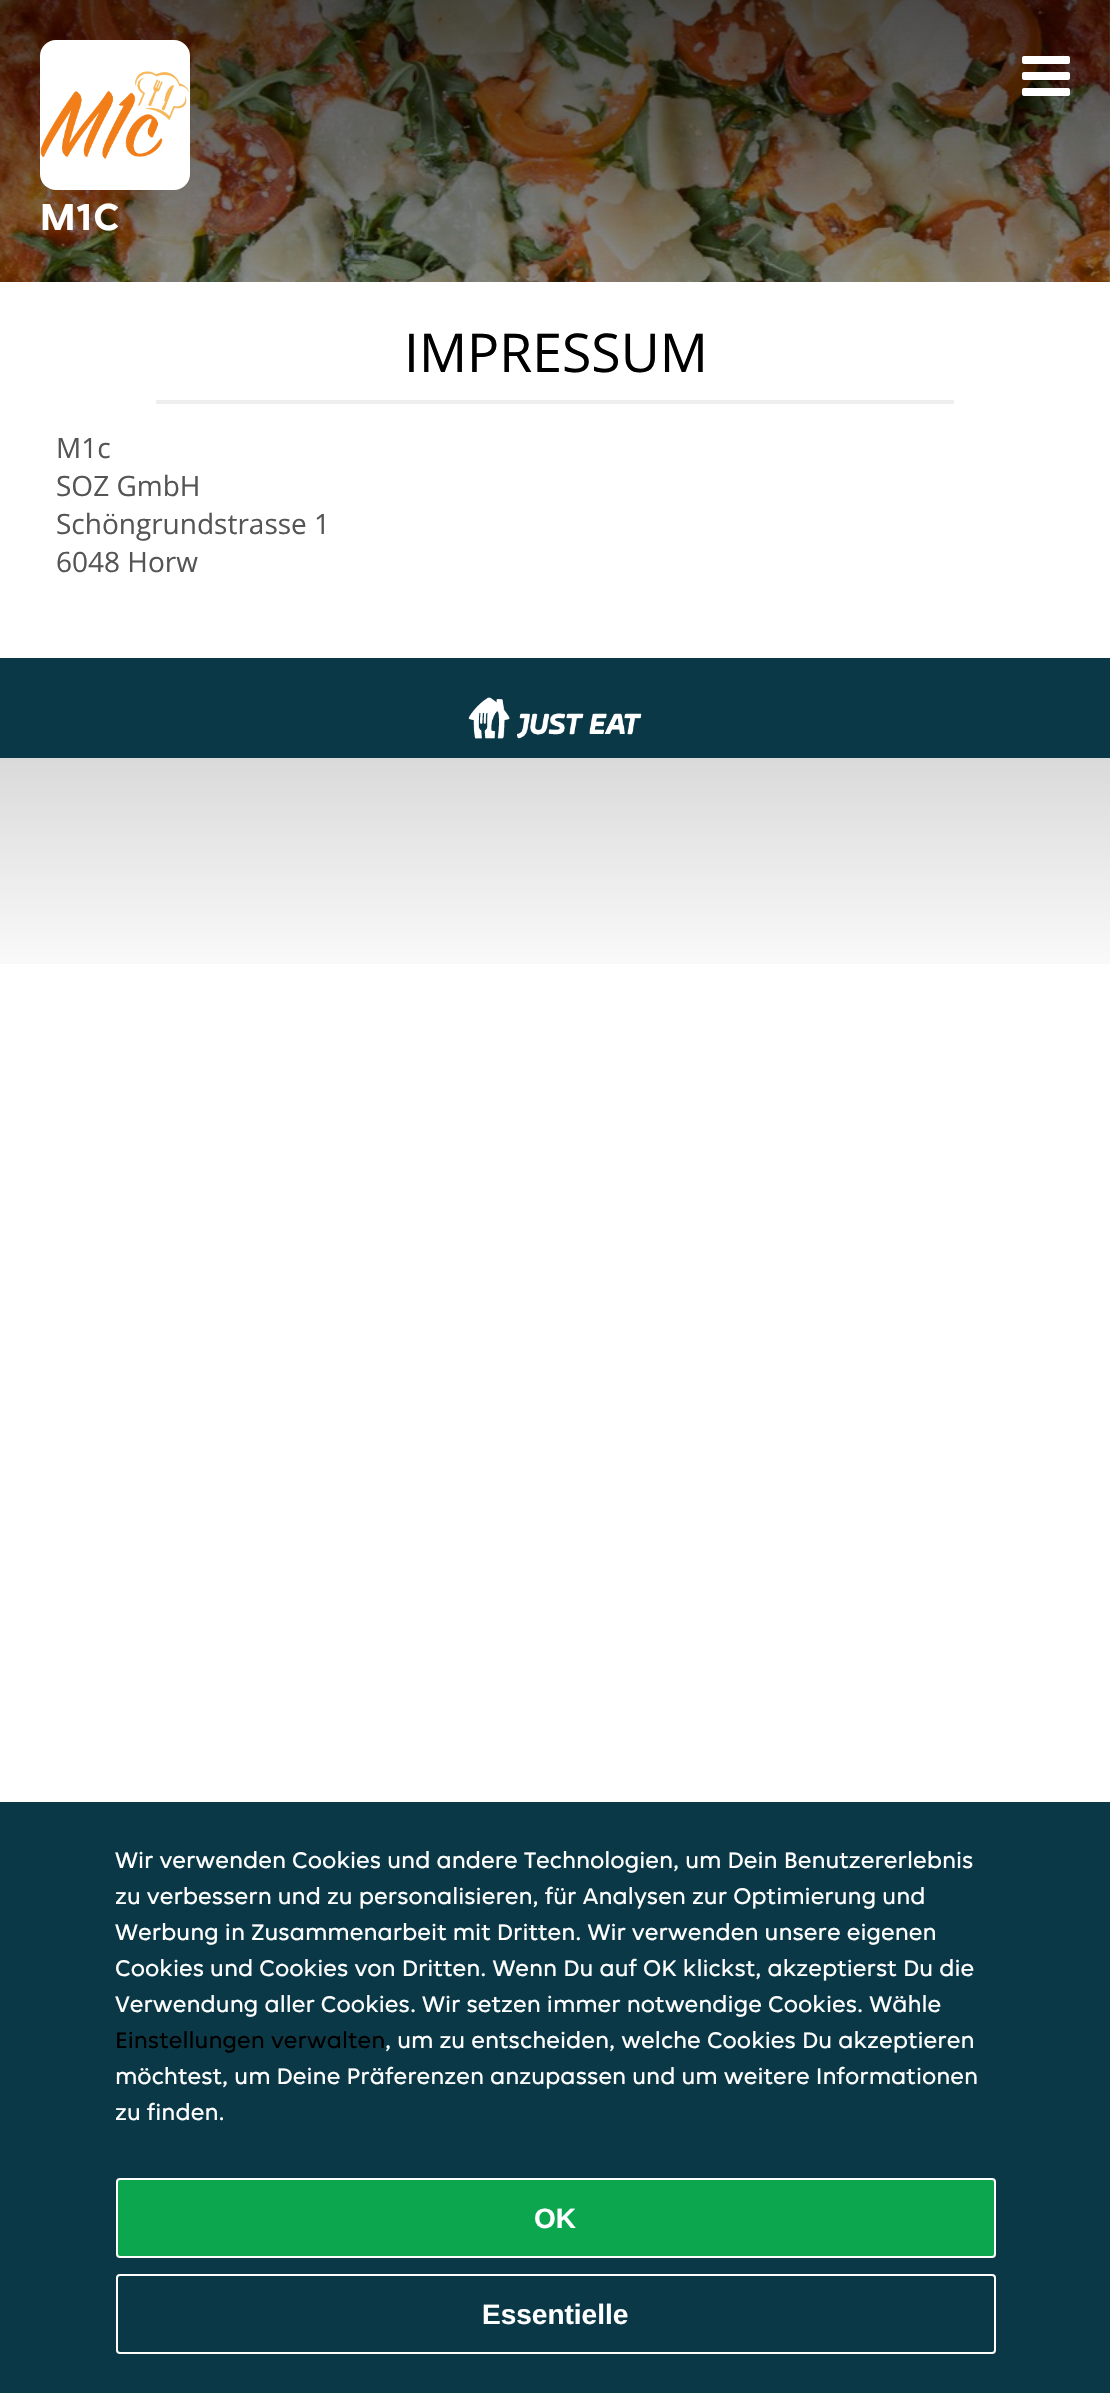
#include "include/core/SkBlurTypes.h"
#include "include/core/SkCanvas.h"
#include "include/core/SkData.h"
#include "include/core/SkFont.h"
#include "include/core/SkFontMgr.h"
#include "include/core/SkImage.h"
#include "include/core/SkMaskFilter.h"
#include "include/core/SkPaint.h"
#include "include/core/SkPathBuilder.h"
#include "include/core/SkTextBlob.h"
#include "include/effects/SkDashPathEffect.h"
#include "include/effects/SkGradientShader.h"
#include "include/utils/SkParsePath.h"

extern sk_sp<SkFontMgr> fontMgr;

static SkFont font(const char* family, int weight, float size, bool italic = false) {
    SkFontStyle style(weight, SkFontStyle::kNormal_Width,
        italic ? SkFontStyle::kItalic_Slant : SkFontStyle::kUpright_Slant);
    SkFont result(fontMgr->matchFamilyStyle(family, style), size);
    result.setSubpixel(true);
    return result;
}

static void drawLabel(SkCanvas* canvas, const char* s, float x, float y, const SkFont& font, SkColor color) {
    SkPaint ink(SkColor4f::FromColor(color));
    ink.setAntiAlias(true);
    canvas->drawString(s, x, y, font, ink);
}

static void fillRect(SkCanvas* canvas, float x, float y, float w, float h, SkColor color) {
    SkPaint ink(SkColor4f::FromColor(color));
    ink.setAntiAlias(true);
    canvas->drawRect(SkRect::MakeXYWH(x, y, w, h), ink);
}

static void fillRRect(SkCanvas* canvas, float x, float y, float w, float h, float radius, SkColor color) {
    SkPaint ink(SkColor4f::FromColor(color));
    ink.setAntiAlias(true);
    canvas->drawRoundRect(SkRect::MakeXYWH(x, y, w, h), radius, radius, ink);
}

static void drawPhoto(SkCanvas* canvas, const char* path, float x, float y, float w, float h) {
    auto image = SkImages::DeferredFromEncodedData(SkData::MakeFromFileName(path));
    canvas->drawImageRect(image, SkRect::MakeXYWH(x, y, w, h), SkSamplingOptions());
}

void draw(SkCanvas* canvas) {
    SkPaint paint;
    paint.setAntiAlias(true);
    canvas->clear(0xFFFFFFFF);
    drawPhoto(canvas, "assets/img1.png", 0, 0, 1110, 282);
    {
        const SkColor colors[] = {0xB3000000, 0x66000000, 0x33000000, 0x00000000};
        const float stops[] = {0, 0.33f, 0.67f, 1};
        const SkPoint ends[] = {{555, 0}, {555, 1000}};
        paint.setShader(SkGradientShader::MakeLinear(ends, colors, stops, 4, SkTileMode::kClamp));
        paint.setAlpha(255);
    }
    canvas->drawRect(SkRect::MakeXYWH(0, 0, 1110, 964), paint);
    drawPhoto(canvas, "assets/img2.png", 1022, 56, 48, 40);
    fillRRect(canvas, 40, 40, 150, 150, 16, 0xFFFFFFFF);
    drawPhoto(canvas, "assets/img3.png", 40, 71, 150, 88);
    SkFont font1 = font("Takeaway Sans", 700, 40);
    drawLabel(canvas, "M1C", 40, 230, font1, 0xFFFFFFFF);
    fillRect(canvas, 0, 282, 1110, 376, 0xFFFFFFFF);
    SkFont font2 = font("Open Sans", 400, 53.5f);
    drawLabel(canvas, "IMPRESSUM", 404, 372, font2, 0xFF000000);
    fillRect(canvas, 156, 400, 798, 4, 0xFFEEEEEE);
    SkFont font3 = font("Open Sans", 400, 28);
    drawLabel(canvas, "M1c", 56, 458, font3, 0xFF555555);
    drawLabel(canvas, "SOZ GmbH", 56, 496, font3, 0xFF555555);
    drawLabel(canvas, "Schöngrundstrasse 1", 56, 534, font3, 0xFF555555);
    drawLabel(canvas, "6048 Horw", 56, 572, font3, 0xFF555555);
    fillRect(canvas, 0, 658, 1110, 100, 0xFF0A3847);
    drawPhoto(canvas, "assets/img4.png", 468, 697, 174, 42);
    fillRect(canvas, 0, 1802, 1110, 591, 0xFF0A3847);
    SkFont font4 = font("Takeaway Sans", 400, 24);
    drawLabel(canvas, "Wir verwenden Cookies und andere Technologien, um Dein Benutzererlebnis", 115, 1868, font4, 0xFFFFFFFF);
    drawLabel(canvas, "zu verbessern und zu personalisieren, für Analysen zur Optimierung und", 115, 1904, font4, 0xFFFFFFFF);
    drawLabel(canvas, "Werbung in Zusammenarbeit mit Dritten. Wir verwenden unsere eigenen", 115, 1940, font4, 0xFFFFFFFF);
    drawLabel(canvas, "Cookies und Cookies von Dritten. Wenn Du auf OK klickst, akzeptierst Du die", 115, 1976, font4, 0xFFFFFFFF);
    drawLabel(canvas, "Verwendung aller Cookies. Wir setzen immer notwendige Cookies. Wähle", 115, 2012, font4, 0xFFFFFFFF);
    drawLabel(canvas, "Einstellungen verwalten", 115, 2048, font4, 0xFF000000);
    drawLabel(canvas, ", um zu entscheiden, welche Cookies Du akzeptieren", 385, 2048, font4, 0xFFFFFFFF);
    drawLabel(canvas, "möchtest, um Deine Präferenzen anzupassen und um weitere Informationen", 115, 2084, font4, 0xFFFFFFFF);
    drawLabel(canvas, "zu finden.", 115, 2120, font4, 0xFFFFFFFF);
    paint.setShader(nullptr);
    paint.setColor(0xFF0CA64F);
    canvas->drawRoundRect(SkRect::MakeXYWH(117, 2179, 878, 78), 3, 3, paint);
    paint.setStroke(true);
    paint.setStrokeWidth(2);
    paint.setColor(0xFFFFFFFF);
    canvas->drawRoundRect(SkRect::MakeXYWH(117, 2179, 878, 78), 3, 3, paint);
    SkFont font5 = font("Liberation Sans", 700, 28);
    drawLabel(canvas, "OK", 534, 2228, font5, 0xFFFFFFFF);
    canvas->drawRoundRect(SkRect::MakeXYWH(117, 2275, 878, 78), 3, 3, paint);
    drawLabel(canvas, "Essentielle", 482, 2324, font5, 0xFFFFFFFF);
}
